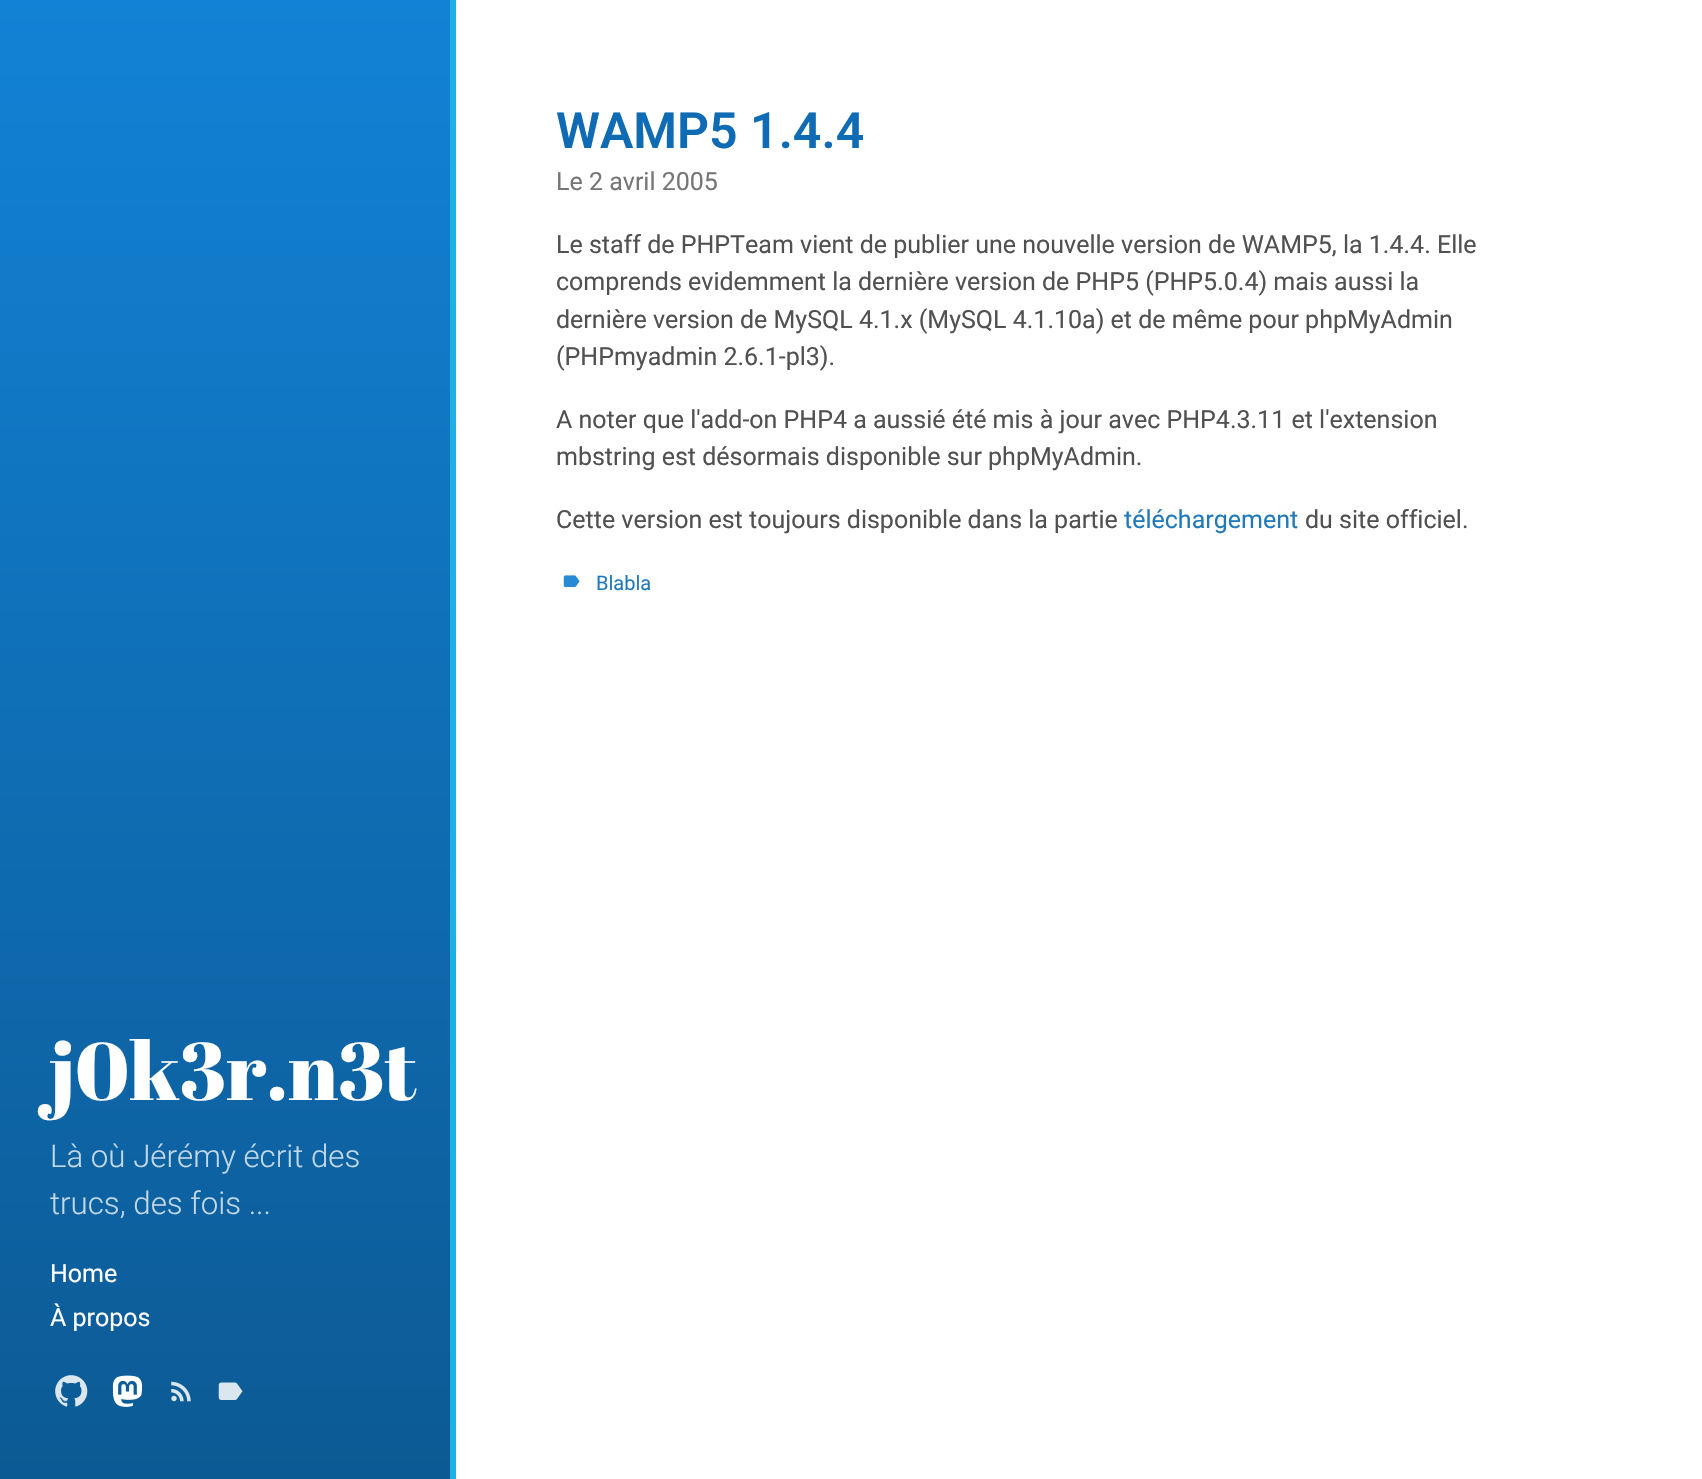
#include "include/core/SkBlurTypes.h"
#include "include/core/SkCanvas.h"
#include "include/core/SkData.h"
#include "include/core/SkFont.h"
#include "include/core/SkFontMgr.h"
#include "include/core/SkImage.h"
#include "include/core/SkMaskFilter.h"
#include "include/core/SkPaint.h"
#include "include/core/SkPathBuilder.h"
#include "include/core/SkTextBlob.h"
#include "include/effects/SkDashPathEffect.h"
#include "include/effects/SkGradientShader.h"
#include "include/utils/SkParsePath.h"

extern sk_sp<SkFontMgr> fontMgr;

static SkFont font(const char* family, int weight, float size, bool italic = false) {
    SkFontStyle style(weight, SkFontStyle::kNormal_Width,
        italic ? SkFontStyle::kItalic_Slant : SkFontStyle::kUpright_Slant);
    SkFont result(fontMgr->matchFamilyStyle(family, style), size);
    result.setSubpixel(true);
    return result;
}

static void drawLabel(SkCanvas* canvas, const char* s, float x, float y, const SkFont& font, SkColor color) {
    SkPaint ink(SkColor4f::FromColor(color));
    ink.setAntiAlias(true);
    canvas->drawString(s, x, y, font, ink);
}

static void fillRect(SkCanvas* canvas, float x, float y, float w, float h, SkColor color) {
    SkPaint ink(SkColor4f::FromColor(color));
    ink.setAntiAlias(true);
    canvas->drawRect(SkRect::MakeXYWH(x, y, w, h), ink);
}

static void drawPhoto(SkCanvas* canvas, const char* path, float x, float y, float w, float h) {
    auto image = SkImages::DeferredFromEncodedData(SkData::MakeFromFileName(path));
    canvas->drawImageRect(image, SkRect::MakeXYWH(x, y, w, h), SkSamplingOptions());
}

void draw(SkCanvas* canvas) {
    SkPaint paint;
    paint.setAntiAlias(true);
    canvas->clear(0xFFFFFFFF);
    {
        const SkColor colors[] = {0xFF1282D6, 0xFF0C5A94};
        const float stops[] = {0, 1};
        const SkPoint ends[] = {{851, 0}, {851, 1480}};
        paint.setShader(SkGradientShader::MakeLinear(ends, colors, stops, 2, SkTileMode::kClamp));
        paint.setAlpha(255);
    }
    canvas->drawRect(SkRect::MakeXYWH(0, 0, 450, 1479), paint);
    fillRect(canvas, 450, 0, 6, 1479, 0xFF1DB0E4);
    SkFont font1 = font("Roboto", 600, 50);
    drawLabel(canvas, "WAMP5 1.4.4", 556, 148, font1, 0xFF0F6BB3);
    SkFont font2 = font("Roboto", 400, 25);
    drawLabel(canvas, "Le 2 avril 2005", 556, 190, font2, 0xFF767676);
    drawLabel(canvas, "Le staff de PHPTeam vient de publier une nouvelle version de WAMP5, la 1.4.4. Elle", 556, 253, font2, 0xFF515151);
    drawLabel(canvas, "comprends evidemment la dernière version de PHP5 (PHP5.0.4) mais aussi la", 556, 290, font2, 0xFF515151);
    drawLabel(canvas, "dernière version de MySQL 4.1.x (MySQL 4.1.10a) et de même pour phpMyAdmin", 556, 328, font2, 0xFF515151);
    drawLabel(canvas, "(PHPmyadmin 2.6.1-pl3).", 556, 365, font2, 0xFF515151);
    drawLabel(canvas, "A noter que l'add-on PHP4 a aussié été mis à jour avec PHP4.3.11 et l'extension", 556, 428, font2, 0xFF515151);
    drawLabel(canvas, "mbstring est désormais disponible sur phpMyAdmin.", 556, 465, font2, 0xFF515151);
    drawLabel(canvas, "Cette version est toujours disponible dans la partie", 556, 528, font2, 0xFF515151);
    drawLabel(canvas, "téléchargement", 1124, 528, font2, 0xFF207AB9);
    drawLabel(canvas, "du site officiel.", 1305, 528, font2, 0xFF515151);
    drawPhoto(canvas, "assets/img1.png", 563, 575, 17, 13);
    SkFont font3 = font("Roboto", 400, 20);
    drawLabel(canvas, "Blabla", 596, 590, font3, 0xFF207AB9);
    SkFont font4 = font("Abril Fatface", 400, 81.25f);
    drawLabel(canvas, "j0k3r.n3t", 50, 1100, font4, 0xFFFFFFFF);
    SkFont font5 = font("Roboto", 300, 31.25f);
    drawLabel(canvas, "Là où Jérémy écrit des", 50, 1167, font5, 0xFFC3D8E8);
    drawLabel(canvas, "trucs, des fois ...", 50, 1214, font5, 0xFFC3D8E8);
    drawLabel(canvas, "Home", 50, 1282, font2, 0xFFFFFFFF);
    drawLabel(canvas, "À propos", 50, 1326, font2, 0xFFFFFFFF);
    drawPhoto(canvas, "assets/img2.png", 55, 1375, 33, 32);
    drawPhoto(canvas, "assets/img3.png", 112, 1375, 31, 32);
    drawPhoto(canvas, "assets/img4.png", 171, 1381, 20, 21);
    drawPhoto(canvas, "assets/img5.png", 218, 1382, 25, 18);
}
